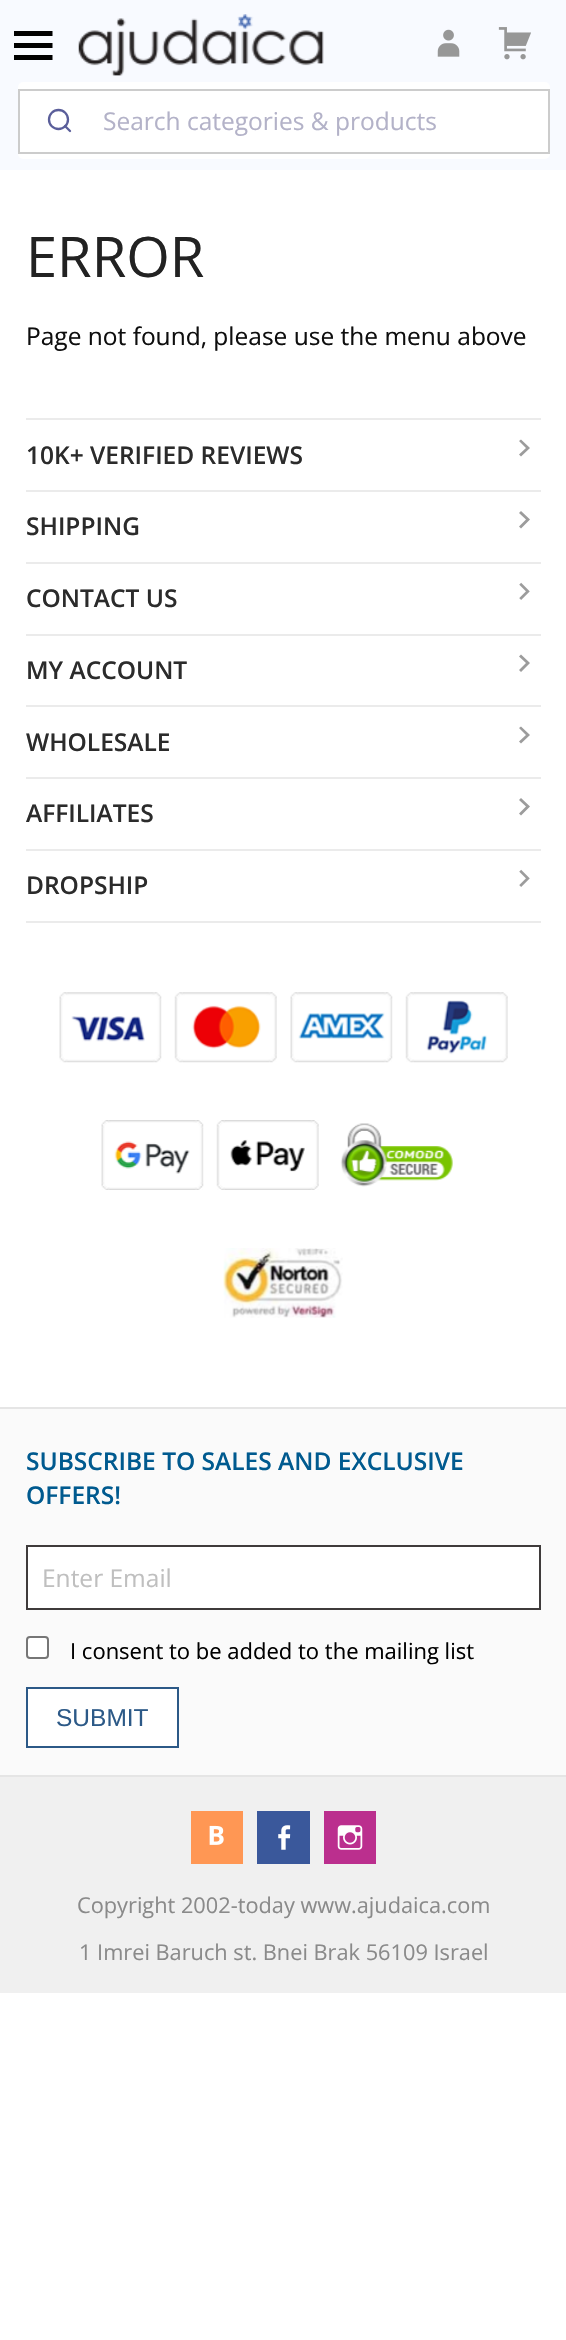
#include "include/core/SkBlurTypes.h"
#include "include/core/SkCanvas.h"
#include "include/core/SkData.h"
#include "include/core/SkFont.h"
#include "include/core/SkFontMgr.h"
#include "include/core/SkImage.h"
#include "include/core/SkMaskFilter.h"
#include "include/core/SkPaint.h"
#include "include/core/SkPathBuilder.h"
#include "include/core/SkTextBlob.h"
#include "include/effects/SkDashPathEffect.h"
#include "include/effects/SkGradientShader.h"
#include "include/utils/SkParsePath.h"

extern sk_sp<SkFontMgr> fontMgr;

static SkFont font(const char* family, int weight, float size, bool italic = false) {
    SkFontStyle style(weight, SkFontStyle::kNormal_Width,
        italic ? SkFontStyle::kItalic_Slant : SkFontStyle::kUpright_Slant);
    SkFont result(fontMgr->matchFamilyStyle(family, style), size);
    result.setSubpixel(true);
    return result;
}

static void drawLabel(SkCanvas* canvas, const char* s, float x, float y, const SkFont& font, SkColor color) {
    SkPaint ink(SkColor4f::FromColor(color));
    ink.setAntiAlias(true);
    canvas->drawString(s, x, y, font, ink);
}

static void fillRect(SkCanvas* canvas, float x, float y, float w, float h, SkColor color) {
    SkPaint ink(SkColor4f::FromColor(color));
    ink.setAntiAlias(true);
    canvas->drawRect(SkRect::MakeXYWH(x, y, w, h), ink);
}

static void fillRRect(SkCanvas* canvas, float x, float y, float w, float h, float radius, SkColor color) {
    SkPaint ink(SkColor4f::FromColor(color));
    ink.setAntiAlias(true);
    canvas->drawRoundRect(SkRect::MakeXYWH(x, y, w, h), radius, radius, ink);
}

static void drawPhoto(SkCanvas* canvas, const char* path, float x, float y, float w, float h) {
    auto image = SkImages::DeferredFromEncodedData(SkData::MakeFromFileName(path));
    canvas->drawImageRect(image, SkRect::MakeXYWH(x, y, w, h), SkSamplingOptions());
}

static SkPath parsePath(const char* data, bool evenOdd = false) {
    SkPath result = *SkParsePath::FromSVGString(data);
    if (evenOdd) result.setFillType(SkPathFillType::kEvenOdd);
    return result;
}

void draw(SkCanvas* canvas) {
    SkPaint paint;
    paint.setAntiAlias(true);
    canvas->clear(0xFFFFFFFF);
    fillRect(canvas, 0, 0, 566, 170, 0xFFF8FAFF);
    paint.setColor(0xFF000000);
    canvas->drawPath(parsePath("M14 60V55H52.5V60ZM14 31H52.5V36H14ZM14 48V43H52.5V48Z"), paint);
    drawPhoto(canvas, "assets/img1.png", 78, 14, 246, 62);
    drawPhoto(canvas, "assets/img2.png", 437, 29, 23, 28);
    drawPhoto(canvas, "assets/img3.png", 498, 27, 33, 33);
    fillRRect(canvas, 18, 82, 532, 77, 5, 0xFFFFFFFF);
    paint.setStroke(true);
    paint.setStrokeWidth(2);
    paint.setColor(0xFFCCCCCC);
    canvas->drawRect(SkRect::MakeXYWH(19, 90, 530, 63), paint);
    paint.setStrokeWidth(2.3f);
    paint.setColor(0xFF5A5E9A);
    canvas->drawCircle(58.5f, 119.5f, 9.5f, paint);
    paint.setStrokeCap(SkPaint::kRound_Cap);
    paint.setStrokeJoin(SkPaint::kRound_Join);
    canvas->drawPath(parsePath("M70 131L65 126"), paint);
    SkFont font1 = font("Open Sans", 400, 24.5f);
    drawLabel(canvas, "Search categories & products", 103, 130, font1, 0xFFB3B2C8);
    SkFont font2 = font("Open Sans", 400, 56);
    drawLabel(canvas, "ERROR", 26, 277, font2, 0xFF222222);
    drawLabel(canvas, "Page not found, please use the menu above", 26, 345, font1, 0xFF0E0E0E);
    fillRect(canvas, 26, 418, 515, 2, 0xFFEBEBEB);
    SkFont font3 = font("Open Sans", 600, 24.5f);
    drawLabel(canvas, "10K+ VERIFIED REVIEWS", 26, 464, font3, 0xFF2B2B2B);
    paint.setStroke(false);
    paint.setColor(0xFF9C9C9C);
    canvas->drawPath(parsePath("M519 454.5L526 448L519 441L521 439.5L530 448L521 456.5Z"), paint);
    fillRect(canvas, 26, 490, 515, 2, 0xFFEBEBEB);
    drawLabel(canvas, "SHIPPING", 26, 535, font3, 0xFF2B2B2B);
    canvas->drawPath(parsePath("M519 526.5L526 519.5L519 513L521 511L530 519.5L521 528.5Z"), paint);
    fillRect(canvas, 26, 562, 515, 2, 0xFFEBEBEB);
    drawLabel(canvas, "CONTACT US", 26, 607, font3, 0xFF2B2B2B);
    drawPhoto(canvas, "assets/img4.png", 519, 582, 11, 18);
    fillRect(canvas, 26, 634, 515, 2, 0xFFEBEBEB);
    drawLabel(canvas, "MY ACCOUNT", 26, 679, font3, 0xFF2B2B2B);
    canvas->drawPath(parsePath("M519 670L526 663L519 656.5L521 654.5L530 663L521 672Z"), paint);
    fillRect(canvas, 26, 705, 515, 2, 0xFFEBEBEB);
    drawLabel(canvas, "WHOLESALE", 26, 751, font3, 0xFF2B2B2B);
    canvas->drawPath(parsePath("M519 741.5L526 735L519 728L521 726.5L530 735L521 743.5Z"), paint);
    fillRect(canvas, 26, 777, 515, 2, 0xFFEBEBEB);
    drawLabel(canvas, "AFFILIATES", 26, 822, font3, 0xFF2B2B2B);
    canvas->drawPath(parsePath("M519 813.5L526 806.5L519 800L521 798L530 806.5L521 815.5Z"), paint);
    fillRect(canvas, 26, 849, 515, 2, 0xFFEBEBEB);
    fillRect(canvas, 26, 921, 515, 2, 0xFFEBEBEB);
    drawLabel(canvas, "DROPSHIP", 26, 894, font3, 0xFF2B2B2B);
    drawPhoto(canvas, "assets/img4.png", 519, 869, 11, 18);
    drawPhoto(canvas, "assets/img5.png", 59, 992, 103, 71);
    drawPhoto(canvas, "assets/img6.png", 174, 992, 103, 71);
    drawPhoto(canvas, "assets/img7.png", 290, 992, 103, 71);
    drawPhoto(canvas, "assets/img8.png", 405, 992, 103, 71);
    drawPhoto(canvas, "assets/img9.png", 101, 1120, 103, 70);
    drawPhoto(canvas, "assets/img10.png", 216, 1120, 103, 70);
    drawPhoto(canvas, "assets/img11.png", 340, 1123, 113, 64);
    drawPhoto(canvas, "assets/img12.png", 223, 1248, 120, 70);
    fillRect(canvas, 0, 1409, 566, 366, 0xFFFAFAFA);
    fillRect(canvas, 0, 1407, 566, 2, 0xFFE5E5E5);
    drawLabel(canvas, "SUBSCRIBE TO SALES AND EXCLUSIVE", 26, 1470, font3, 0xFF005A8F);
    drawLabel(canvas, "OFFERS!", 26, 1504, font3, 0xFF005A8F);
    paint.setColor(0xFFFFFFFF);
    canvas->drawRect(SkRect::MakeXYWH(27, 1546, 513, 63), paint);
    paint.setStroke(true);
    paint.setStrokeWidth(2);
    paint.setStrokeCap(SkPaint::kButt_Cap);
    paint.setStrokeJoin(SkPaint::kMiter_Join);
    paint.setColor(0xFF3F3B3B);
    canvas->drawRect(SkRect::MakeXYWH(27, 1546, 513, 63), paint);
    drawLabel(canvas, "Enter Email", 42, 1587, font1, 0xFFBFBFBF);
    paint.setStroke(false);
    paint.setColor(0xFFFFFFFF);
    canvas->drawRoundRect(SkRect::MakeXYWH(27, 1637, 21, 21), 3, 3, paint);
    paint.setStroke(true);
    paint.setColor(0xFF767676);
    canvas->drawRoundRect(SkRect::MakeXYWH(27, 1637, 21, 21), 3, 3, paint);
    SkFont font4 = font("Open Sans", 400, 22);
    drawLabel(canvas, "I consent to be added to the mailing list", 70, 1659, font4, 0xFF000000);
    paint.setStroke(false);
    paint.setColor(0xFFFFFFFF);
    canvas->drawRect(SkRect::MakeXYWH(27, 1688, 151, 59), paint);
    paint.setStroke(true);
    paint.setColor(0xFF2C5987);
    canvas->drawRect(SkRect::MakeXYWH(27, 1688, 151, 59), paint);
    SkFont font5 = font("Liberation Sans", 400, 24.5f);
    drawLabel(canvas, "SUBMIT", 56, 1726, font5, 0xFF2C5987);
    fillRect(canvas, 0, 1777, 566, 216, 0xFFF0F0F0);
    fillRect(canvas, 0, 1775, 566, 2, 0xFFE5E5E5);
    fillRect(canvas, 191, 1811, 52, 53, 0xFFFF9754);
    drawPhoto(canvas, "assets/img13.png", 209, 1825, 15, 20);
    fillRect(canvas, 257, 1811, 53, 53, 0xFF3A589B);
    drawPhoto(canvas, "assets/img14.png", 278, 1825, 13, 25);
    fillRect(canvas, 324, 1811, 52, 53, 0xFFBB2F8E);
    drawPhoto(canvas, "assets/img15.png", 337, 1825, 26, 25);
    SkFont font6 = font("Open Sans", 400, 21.75f);
    drawLabel(canvas, "Copyright 2002-today www.ajudaica.com", 77, 1913, font6, 0xFF8A8A8A);
    drawLabel(canvas, "1 Imrei Baruch st. Bnei Brak 56109 Israel", 79, 1960, font6, 0xFF8A8A8A);
}
